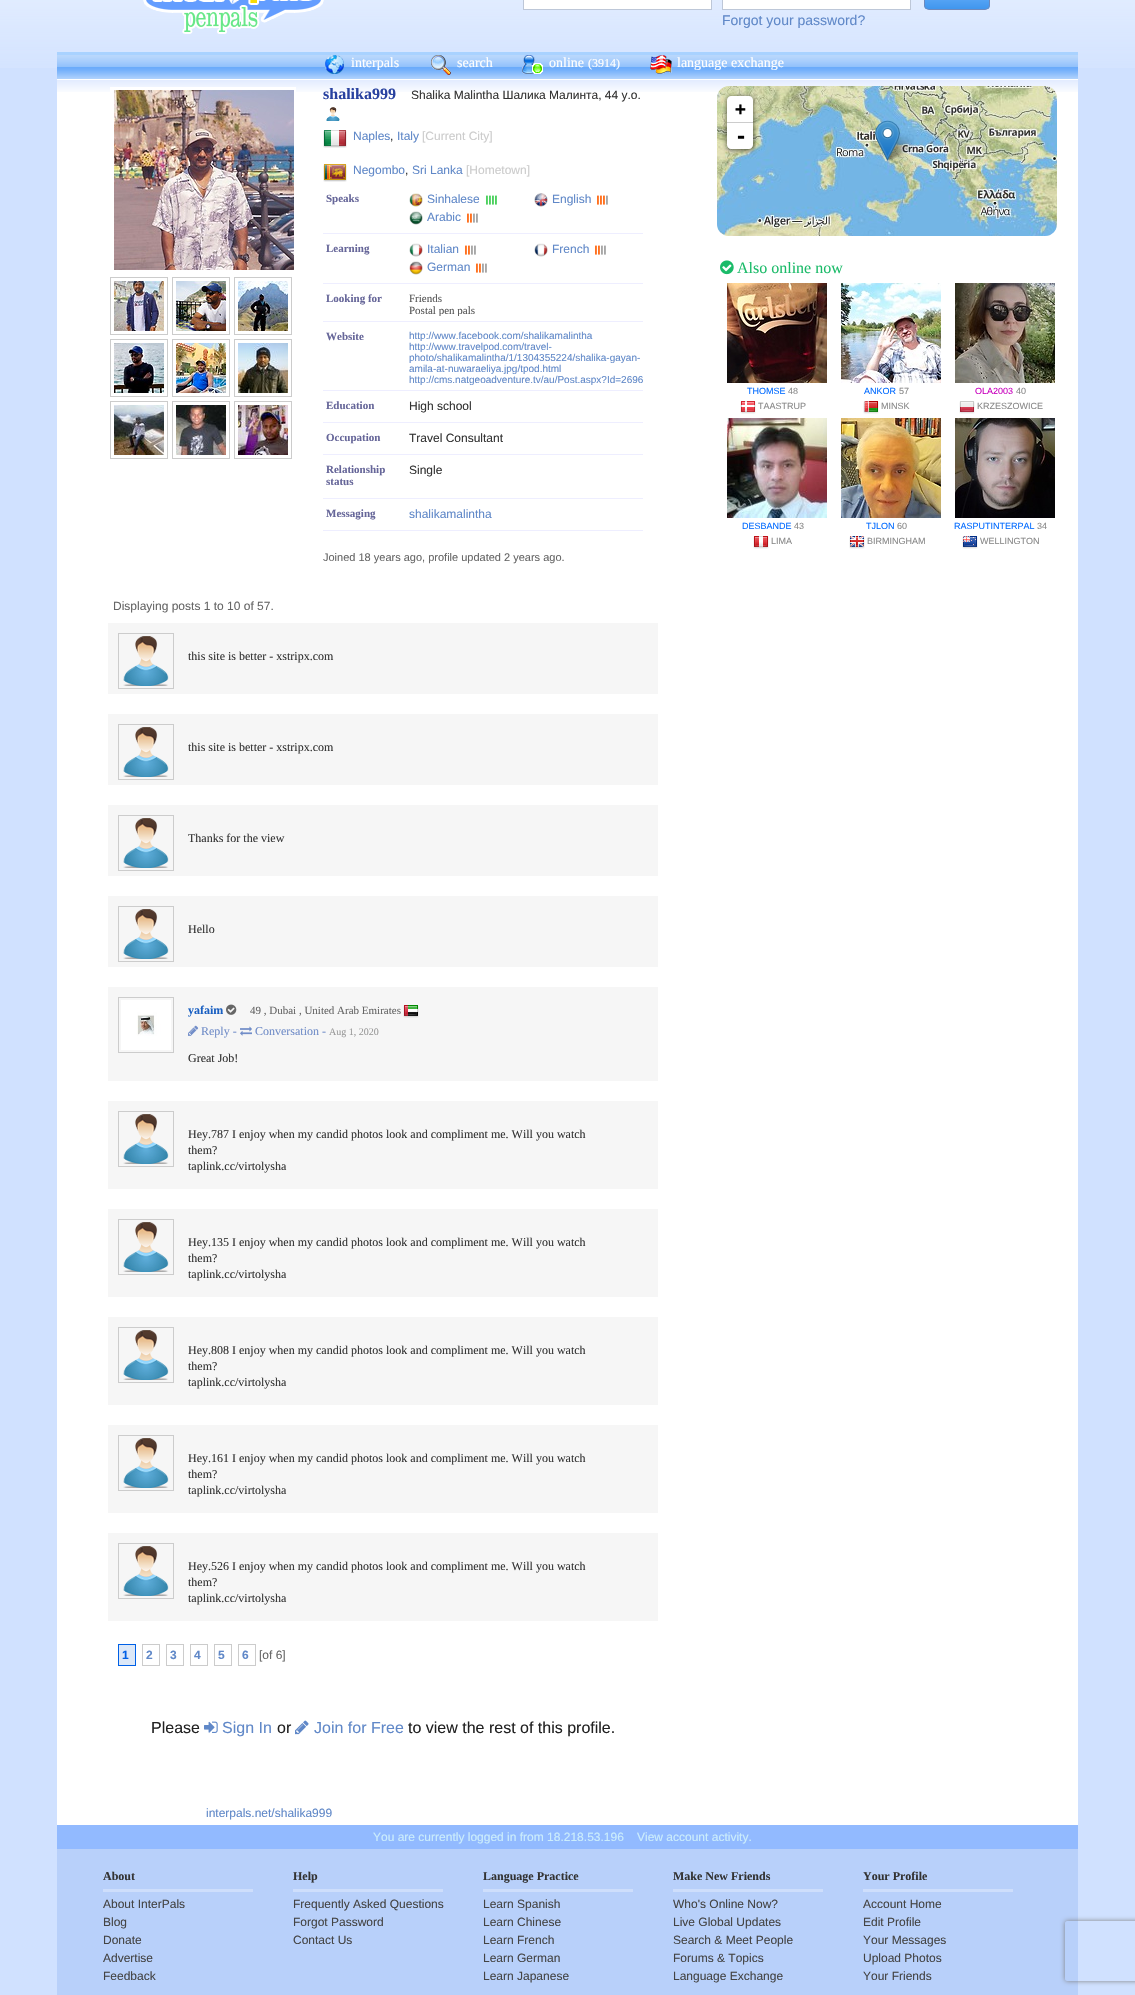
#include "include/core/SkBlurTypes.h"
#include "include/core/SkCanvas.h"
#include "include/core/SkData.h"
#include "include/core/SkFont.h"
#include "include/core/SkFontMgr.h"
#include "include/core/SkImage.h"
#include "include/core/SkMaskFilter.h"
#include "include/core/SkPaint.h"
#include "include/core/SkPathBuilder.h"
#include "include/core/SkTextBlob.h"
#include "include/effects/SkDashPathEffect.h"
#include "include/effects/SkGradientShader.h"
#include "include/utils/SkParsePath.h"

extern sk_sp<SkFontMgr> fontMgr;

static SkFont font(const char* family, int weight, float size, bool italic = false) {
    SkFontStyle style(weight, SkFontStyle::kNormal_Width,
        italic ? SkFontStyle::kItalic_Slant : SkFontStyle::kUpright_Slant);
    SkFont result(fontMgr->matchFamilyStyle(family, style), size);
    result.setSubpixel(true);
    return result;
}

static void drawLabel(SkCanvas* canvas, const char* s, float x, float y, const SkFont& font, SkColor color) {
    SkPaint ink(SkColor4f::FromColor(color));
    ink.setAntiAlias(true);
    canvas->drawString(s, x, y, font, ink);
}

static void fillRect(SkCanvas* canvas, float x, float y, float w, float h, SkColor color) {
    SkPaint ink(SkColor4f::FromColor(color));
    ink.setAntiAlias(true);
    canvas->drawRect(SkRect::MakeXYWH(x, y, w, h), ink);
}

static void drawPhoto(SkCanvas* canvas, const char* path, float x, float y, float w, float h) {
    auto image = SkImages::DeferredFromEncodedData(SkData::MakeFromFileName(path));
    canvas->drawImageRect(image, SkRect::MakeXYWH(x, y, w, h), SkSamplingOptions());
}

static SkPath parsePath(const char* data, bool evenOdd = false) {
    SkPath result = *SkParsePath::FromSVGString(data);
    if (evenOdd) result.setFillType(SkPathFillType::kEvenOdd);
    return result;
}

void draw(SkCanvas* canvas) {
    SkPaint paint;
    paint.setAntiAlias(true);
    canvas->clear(0xFFD0E1FF);
    drawPhoto(canvas, "assets/img1.png", 0, 0, 1135, 68);
    drawPhoto(canvas, "assets/img2.png", 143, 0, 181, 34);
    paint.setColor(0xFFFFFFFF);
    canvas->drawRect(SkRect::MakeXYWH(523.5f, -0.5f, 188, 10), paint);
    paint.setStroke(true);
    paint.setStrokeWidth(1);
    paint.setColor(0xFFBDC7D8);
    canvas->drawRect(SkRect::MakeXYWH(523.5f, -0.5f, 188, 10), paint);
    canvas->save();
    canvas->clipPath(parsePath("M929-18H985C988-18 990-16 990-13V5C990 8 988 10 985 10H929C926 10 924 8 924 5V-13C924-16 926-18 929-18Z"), true);
    paint.setStroke(false);
    {
        const SkColor colors[] = {0xFF7ABCFF, 0xFF60ABF8, 0xFF4096EE};
        const float stops[] = {0, 0.44f, 1};
        const SkPoint ends[] = {{957, -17}, {957, 9}};
        paint.setShader(SkGradientShader::MakeLinear(ends, colors, stops, 3, SkTileMode::kClamp));
        paint.setAlpha(255);
    }
    canvas->drawRect(SkRect::MakeXYWH(924, 0, 66, 9), paint);
    canvas->restore();
    paint.setStroke(true);
    paint.setShader(nullptr);
    paint.setColor(0xFF6E89BC);
    canvas->drawRoundRect(SkRect::MakeXYWH(924.5f, -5.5f, 65, 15), 4.5f, 4.5f, paint);
    paint.setStroke(false);
    paint.setColor(0xFFFFFFFF);
    canvas->drawRect(SkRect::MakeXYWH(722.5f, -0.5f, 188, 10), paint);
    paint.setStroke(true);
    paint.setColor(0xFFBDC7D8);
    canvas->drawRect(SkRect::MakeXYWH(722.5f, -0.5f, 188, 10), paint);
    SkFont font1 = font("Liberation Sans", 400, 14);
    drawLabel(canvas, "Forgot your password?", 722, 25, font1, 0xFF6088C8);
    fillRect(canvas, 57, 52, 1021, 3, 0xFFA9D2FF);
    drawPhoto(canvas, "assets/img3.png", 57, 55, 1021, 24);
    fillRect(canvas, 57, 79, 1021, 1, 0xFFFFFFFF);
    drawPhoto(canvas, "assets/img4.png", 325, 55, 19, 19);
    SkFont font2 = font("Liberation Serif", 400, 14);
    drawLabel(canvas, "interpals", 351, 67, font2, 0xFFFFFFFF);
    drawPhoto(canvas, "assets/img5.png", 431, 55, 20, 20);
    drawLabel(canvas, "search", 457, 67, font2, 0xFFFFFFFF);
    drawPhoto(canvas, "assets/img6.png", 522, 55, 21, 19);
    drawLabel(canvas, "online", 549, 67, font2, 0xFFFFFFFF);
    SkFont font3 = font("Liberation Serif", 400, 12);
    drawLabel(canvas, "(3914)", 588, 67, font3, 0xFFFFFFFF);
    drawPhoto(canvas, "assets/img7.png", 650, 55, 22, 19);
    drawLabel(canvas, "language exchange", 677, 67, font2, 0xFFFFFFFF);
    fillRect(canvas, 57, 92, 1021, 1733, 0xFFFFFFFF);
    drawPhoto(canvas, "assets/img8.png", 57, 80, 1021, 12);
    fillRect(canvas, 110, 87, 186, 5, 0xFFFFFFFF);
    drawPhoto(canvas, "assets/img9.png", 114, 90, 180, 180);
    paint.setColor(0xFFCCCCCC);
    canvas->drawRect(SkRect::MakeXYWH(110.5f, 277.5f, 57, 57), paint);
    drawPhoto(canvas, "assets/img10.png", 114, 281, 50, 50);
    canvas->drawRect(SkRect::MakeXYWH(172.5f, 277.5f, 57, 57), paint);
    drawPhoto(canvas, "assets/img11.png", 176, 281, 50, 50);
    canvas->drawRect(SkRect::MakeXYWH(234.5f, 277.5f, 57, 57), paint);
    drawPhoto(canvas, "assets/img12.png", 238, 281, 50, 50);
    canvas->drawRect(SkRect::MakeXYWH(110.5f, 339.5f, 57, 57), paint);
    drawPhoto(canvas, "assets/img13.png", 114, 343, 50, 50);
    canvas->drawRect(SkRect::MakeXYWH(172.5f, 339.5f, 57, 57), paint);
    drawPhoto(canvas, "assets/img14.png", 176, 343, 50, 50);
    canvas->drawRect(SkRect::MakeXYWH(234.5f, 339.5f, 57, 57), paint);
    drawPhoto(canvas, "assets/img15.png", 238, 343, 50, 50);
    canvas->drawRect(SkRect::MakeXYWH(110.5f, 401.5f, 57, 57), paint);
    drawPhoto(canvas, "assets/img16.png", 114, 405, 50, 50);
    canvas->drawRect(SkRect::MakeXYWH(172.5f, 401.5f, 57, 57), paint);
    drawPhoto(canvas, "assets/img17.png", 176, 405, 50, 50);
    canvas->drawRect(SkRect::MakeXYWH(234.5f, 401.5f, 57, 57), paint);
    drawPhoto(canvas, "assets/img18.png", 238, 405, 50, 50);
    SkFont font4 = font("Liberation Serif", 700, 16);
    drawLabel(canvas, "shalika999", 323, 99, font4, 0xFF2942A0);
    SkFont font5 = font("Liberation Sans", 400, 12);
    drawLabel(canvas, "Shalika Malintha Шалика Малинта, 44 y.o.", 411, 99, font5, 0xFF333333);
    drawPhoto(canvas, "assets/img19.png", 326, 107, 14, 14);
    drawPhoto(canvas, "assets/img20.png", 323, 130, 24, 18);
    drawLabel(canvas, "Naples", 353, 140, font5, 0xFF6088C8);
    drawLabel(canvas, ",", 390, 140, font5, 0xFF333333);
    drawLabel(canvas, "Italy", 397, 140, font5, 0xFF6088C8);
    drawLabel(canvas, "[Current City]", 422, 140, font5, 0xFFCCCCCC);
    drawPhoto(canvas, "assets/img21.png", 323, 164, 24, 18);
    drawLabel(canvas, "Negombo", 353, 174, font5, 0xFF6088C8);
    drawLabel(canvas, ",", 405, 174, font5, 0xFF333333);
    drawLabel(canvas, "Sri Lanka", 412, 174, font5, 0xFF6088C8);
    drawLabel(canvas, "[Hometown]", 466, 174, font5, 0xFFCCCCCC);
    fillRect(canvas, 323, 233, 320, 1, 0xFFEEEEFF);
    SkFont font6 = font("Liberation Serif", 700, 11);
    drawLabel(canvas, "Speaks", 326, 202, font6, 0xFF666699);
    drawPhoto(canvas, "assets/img22.png", 409, 193, 14, 14);
    drawLabel(canvas, "Sinhalese", 427, 203, font5, 0xFF6088C8);
    drawPhoto(canvas, "assets/img23.png", 486, 195, 11, 10);
    drawPhoto(canvas, "assets/img24.png", 534, 193, 14, 14);
    drawLabel(canvas, "English", 552, 203, font5, 0xFF6088C8);
    drawPhoto(canvas, "assets/img25.png", 597, 195, 11, 10);
    drawPhoto(canvas, "assets/img26.png", 409, 211, 14, 14);
    drawLabel(canvas, "Arabic", 427, 221, font5, 0xFF6088C8);
    drawPhoto(canvas, "assets/img27.png", 467, 213, 11, 10);
    fillRect(canvas, 323, 283, 320, 1, 0xFFEEEEFF);
    drawLabel(canvas, "Learning", 326, 252, font6, 0xFF666699);
    drawPhoto(canvas, "assets/img28.png", 409, 243, 14, 14);
    drawLabel(canvas, "Italian", 427, 253, font5, 0xFF6088C8);
    drawPhoto(canvas, "assets/img27.png", 465, 245, 11, 10);
    drawPhoto(canvas, "assets/img29.png", 534, 243, 14, 14);
    drawLabel(canvas, "French", 552, 253, font5, 0xFF6088C8);
    drawPhoto(canvas, "assets/img27.png", 595, 245, 11, 10);
    drawPhoto(canvas, "assets/img30.png", 409, 261, 14, 14);
    drawLabel(canvas, "German", 427, 271, font5, 0xFF6088C8);
    drawPhoto(canvas, "assets/img27.png", 476, 263, 11, 10);
    fillRect(canvas, 323, 321, 320, 1, 0xFFEEEEFF);
    drawLabel(canvas, "Looking for", 326, 302, font6, 0xFF666699);
    SkFont font7 = font("Liberation Serif", 400, 11);
    drawLabel(canvas, "Friends", 409, 302, font7, 0xFF555555);
    canvas->save();
    canvas->clipRect(SkRect::MakeXYWH(409, 289, 234, 27));
    drawLabel(canvas, "Postal pen pals", 409, 314, font7, 0xFF555555);
    canvas->restore();
    fillRect(canvas, 323, 390, 320, 1, 0xFFEEEEFF);
    drawLabel(canvas, "Website", 326, 340, font6, 0xFF666699);
    SkFont font8 = font("Liberation Sans", 400, 10);
    drawLabel(canvas, "http://www.facebook.com/shalikamalintha", 409, 339, font8, 0xFF6088C8);
    drawLabel(canvas, "http://www.travelpod.com/travel-", 409, 350, font8, 0xFF6088C8);
    drawLabel(canvas, "photo/shalikamalintha/1/1304355224/shalika-gayan-", 409, 361, font8, 0xFF6088C8);
    drawLabel(canvas, "amila-at-nuwaraeliya.jpg/tpod.html", 409, 372, font8, 0xFF6088C8);
    drawLabel(canvas, "http://cms.natgeoadventure.tv/au/Post.aspx?Id=2696", 409, 383, font8, 0xFF6088C8);
    fillRect(canvas, 323, 422, 320, 1, 0xFFEEEEFF);
    drawLabel(canvas, "Education", 326, 409, font6, 0xFF666699);
    drawLabel(canvas, "High school", 409, 410, font5, 0xFF333333);
    fillRect(canvas, 323, 454, 320, 1, 0xFFEEEEFF);
    drawLabel(canvas, "Occupation", 326, 441, font6, 0xFF666699);
    drawLabel(canvas, "Travel Consultant", 409, 442, font5, 0xFF333333);
    fillRect(canvas, 323, 498, 320, 1, 0xFFEEEEFF);
    drawLabel(canvas, "Relationship", 326, 473, font6, 0xFF666699);
    drawLabel(canvas, "status", 326, 485, font6, 0xFF666699);
    drawLabel(canvas, "Single", 409, 474, font5, 0xFF333333);
    fillRect(canvas, 323, 530, 320, 1, 0xFFEEEEFF);
    drawLabel(canvas, "Messaging", 326, 517, font6, 0xFF666699);
    drawLabel(canvas, "shalikamalintha", 409, 518, font5, 0xFF6088C8);
    SkFont font9 = font("Liberation Sans", 400, 11);
    drawLabel(canvas, "Joined 18 years ago, profile updated 2 years ago.", 323, 561, font9, 0xFF666666);
    drawLabel(canvas, "Displaying posts 1 to 10 of 57.", 113, 610, font5, 0xFF666666);
    fillRect(canvas, 108, 623, 550, 71, 0xFFF6F6F6);
    canvas->drawRect(SkRect::MakeXYWH(118.5f, 633.5f, 55, 55), paint);
    drawPhoto(canvas, "assets/img31.png", 123, 636, 46, 50);
    drawLabel(canvas, "this site is better - xstripx.com", 188, 660, font3, 0xFF333333);
    fillRect(canvas, 108, 714, 550, 71, 0xFFF6F6F6);
    canvas->drawRect(SkRect::MakeXYWH(118.5f, 724.5f, 55, 55), paint);
    drawPhoto(canvas, "assets/img31.png", 123, 727, 46, 50);
    drawLabel(canvas, "this site is better - xstripx.com", 188, 751, font3, 0xFF333333);
    fillRect(canvas, 108, 805, 550, 71, 0xFFF6F6F6);
    canvas->drawRect(SkRect::MakeXYWH(118.5f, 815.5f, 55, 55), paint);
    drawPhoto(canvas, "assets/img31.png", 123, 818, 46, 50);
    drawLabel(canvas, "Thanks for the view", 188, 842, font3, 0xFF333333);
    fillRect(canvas, 108, 896, 550, 71, 0xFFF6F6F6);
    canvas->drawRect(SkRect::MakeXYWH(118.5f, 906.5f, 55, 55), paint);
    drawPhoto(canvas, "assets/img31.png", 123, 909, 46, 50);
    drawLabel(canvas, "Hello", 188, 933, font3, 0xFF333333);
    fillRect(canvas, 108, 987, 550, 94, 0xFFF6F6F6);
    canvas->drawRect(SkRect::MakeXYWH(118.5f, 997.5f, 55, 55), paint);
    drawPhoto(canvas, "assets/img32.png", 121, 1000, 50, 50);
    SkFont font10 = font("Liberation Serif", 700, 12);
    drawLabel(canvas, "yafaim", 188, 1014, font10, 0xFF1A60C2);
    drawPhoto(canvas, "assets/img33.png", 226, 1004, 11, 11);
    drawLabel(canvas, "49 , Dubai , United Arab Emirates", 250, 1014, font7, 0xFF666666);
    drawPhoto(canvas, "assets/img34.png", 403, 1005, 16, 13);
    drawPhoto(canvas, "assets/img35.png", 188, 1025, 11, 11);
    drawLabel(canvas, "Reply -", 201, 1035, font3, 0xFF718DC8);
    drawPhoto(canvas, "assets/img36.png", 240, 1026, 12, 10);
    drawLabel(canvas, "Conversation -", 255, 1035, font3, 0xFF718DC8);
    SkFont font11 = font("Liberation Serif", 400, 10);
    drawLabel(canvas, "Aug 1, 2020", 329, 1035, font11, 0xFF999999);
    drawLabel(canvas, "Great Job!", 188, 1062, font3, 0xFF333333);
    fillRect(canvas, 108, 1101, 550, 88, 0xFFF6F6F6);
    canvas->drawRect(SkRect::MakeXYWH(118.5f, 1111.5f, 55, 55), paint);
    drawPhoto(canvas, "assets/img31.png", 123, 1114, 46, 50);
    drawLabel(canvas, "Hey.787 I enjoy when my candid photos look and compliment me. Will you watch", 188, 1138, font3, 0xFF333333);
    drawLabel(canvas, "them?", 188, 1154, font3, 0xFF333333);
    drawLabel(canvas, "taplink.cc/virtolysha", 188, 1170, font3, 0xFF333333);
    fillRect(canvas, 108, 1209, 550, 88, 0xFFF6F6F6);
    canvas->drawRect(SkRect::MakeXYWH(118.5f, 1219.5f, 55, 55), paint);
    drawPhoto(canvas, "assets/img31.png", 123, 1222, 46, 50);
    drawLabel(canvas, "Hey.135 I enjoy when my candid photos look and compliment me. Will you watch", 188, 1246, font3, 0xFF333333);
    drawLabel(canvas, "them?", 188, 1262, font3, 0xFF333333);
    drawLabel(canvas, "taplink.cc/virtolysha", 188, 1278, font3, 0xFF333333);
    fillRect(canvas, 108, 1317, 550, 88, 0xFFF6F6F6);
    canvas->drawRect(SkRect::MakeXYWH(118.5f, 1327.5f, 55, 55), paint);
    drawPhoto(canvas, "assets/img31.png", 123, 1330, 46, 50);
    drawLabel(canvas, "Hey.808 I enjoy when my candid photos look and compliment me. Will you watch", 188, 1354, font3, 0xFF333333);
    drawLabel(canvas, "them?", 188, 1370, font3, 0xFF333333);
    drawLabel(canvas, "taplink.cc/virtolysha", 188, 1386, font3, 0xFF333333);
    fillRect(canvas, 108, 1425, 550, 88, 0xFFF6F6F6);
    canvas->drawRect(SkRect::MakeXYWH(118.5f, 1435.5f, 55, 55), paint);
    drawPhoto(canvas, "assets/img31.png", 123, 1438, 46, 50);
    drawLabel(canvas, "Hey.161 I enjoy when my candid photos look and compliment me. Will you watch", 188, 1462, font3, 0xFF333333);
    drawLabel(canvas, "them?", 188, 1478, font3, 0xFF333333);
    drawLabel(canvas, "taplink.cc/virtolysha", 188, 1494, font3, 0xFF333333);
    fillRect(canvas, 108, 1533, 550, 88, 0xFFF6F6F6);
    canvas->drawRect(SkRect::MakeXYWH(118.5f, 1543.5f, 55, 55), paint);
    drawPhoto(canvas, "assets/img31.png", 123, 1546, 46, 50);
    drawLabel(canvas, "Hey.526 I enjoy when my candid photos look and compliment me. Will you watch", 188, 1570, font3, 0xFF333333);
    drawLabel(canvas, "them?", 188, 1586, font3, 0xFF333333);
    drawLabel(canvas, "taplink.cc/virtolysha", 188, 1602, font3, 0xFF333333);
    paint.setStroke(false);
    paint.setColor(0xFFDCE8F8);
    canvas->drawRect(SkRect::MakeXYWH(118.5f, 1644.5f, 17, 21), paint);
    paint.setStroke(true);
    paint.setColor(0xFF0060E6);
    canvas->drawRect(SkRect::MakeXYWH(118.5f, 1644.5f, 17, 21), paint);
    SkFont font12 = font("Liberation Sans", 700, 12);
    drawLabel(canvas, "1", 122, 1659, font12, 0xFF0060E6);
    paint.setColor(0xFFCCCCCC);
    canvas->drawRect(SkRect::MakeXYWH(142.5f, 1644.5f, 17, 21), paint);
    drawLabel(canvas, "2", 146, 1659, font12, 0xFF6088C8);
    canvas->drawRect(SkRect::MakeXYWH(166.5f, 1644.5f, 17, 21), paint);
    drawLabel(canvas, "3", 170, 1659, font12, 0xFF6088C8);
    canvas->drawRect(SkRect::MakeXYWH(190.5f, 1644.5f, 17, 21), paint);
    drawLabel(canvas, "4", 194, 1659, font12, 0xFF6088C8);
    canvas->drawRect(SkRect::MakeXYWH(214.5f, 1644.5f, 17, 21), paint);
    drawLabel(canvas, "5", 218, 1659, font12, 0xFF6088C8);
    canvas->drawRect(SkRect::MakeXYWH(238.5f, 1644.5f, 17, 21), paint);
    drawLabel(canvas, "6", 242, 1659, font12, 0xFF6088C8);
    drawLabel(canvas, "[of 6]", 259, 1659, font5, 0xFF666666);
    SkFont font13 = font("Liberation Sans", 400, 16);
    drawLabel(canvas, "Please", 151, 1733, font13, 0xFF222222);
    drawPhoto(canvas, "assets/img37.png", 204, 1721, 14, 12);
    drawLabel(canvas, "Sign In", 222, 1733, font13, 0xFF6088C8);
    drawLabel(canvas, "or", 277, 1733, font13, 0xFF222222);
    drawPhoto(canvas, "assets/img38.png", 295, 1720, 14, 15);
    drawLabel(canvas, "Join for Free", 314, 1733, font13, 0xFF6088C8);
    drawLabel(canvas, "to view the rest of this profile.", 408, 1733, font13, 0xFF222222);
    drawLabel(canvas, "interpals.net/shalika999", 206, 1817, font5, 0xFF6088C8);
    drawPhoto(canvas, "assets/img39.png", 717, 86, 340, 150);
    drawPhoto(canvas, "assets/img40.png", 717, 86, 8, 73);
    drawPhoto(canvas, "assets/img41.png", 725, 86, 256, 73);
    drawPhoto(canvas, "assets/img42.png", 981, 86, 76, 73);
    drawPhoto(canvas, "assets/img43.png", 717, 159, 8, 77);
    drawPhoto(canvas, "assets/img44.png", 725, 159, 256, 77);
    drawPhoto(canvas, "assets/img45.png", 981, 159, 76, 77);
    drawPhoto(canvas, "assets/img47.png", 885, 133, 29, 28);
    drawPhoto(canvas, "assets/img46.png", 875, 120, 25, 41);
    paint.setStroke(false);
    paint.setColor(0xA6000000);
    paint.setMaskFilter(SkMaskFilter::MakeBlur(kNormal_SkBlurStyle, 2.5f));
    canvas->drawRoundRect(SkRect::MakeXYWH(727, 97, 26, 53), 4, 4, paint);
    paint.setMaskFilter(nullptr);
    paint.setColor(0xFFFFFFFF);
    canvas->drawPath(parsePath("M731 96H749C751 96 753 98 753 100V123H727V100C727 98 729 96 731 96Z"), paint);
    fillRect(canvas, 727, 122, 26, 1, 0xFFCCCCCC);
    SkFont font14 = font("DejaVu Sans Mono", 700, 18);
    drawLabel(canvas, "+", 735, 115, font14, 0xFF000000);
    canvas->drawPath(parsePath("M727 123H753V145C753 147 751 149 749 149H731C729 149 727 147 727 145Z"), paint);
    SkFont font15 = font("DejaVu Sans Mono", 700, 20);
    drawLabel(canvas, "-", 735, 143, font15, 0xFF000000);
    drawPhoto(canvas, "assets/img48.png", 720, 260, 14, 15);
    SkFont font16 = font("Liberation Serif", 400, 16);
    drawLabel(canvas, "Also online now", 737, 273, font16, 0xFF1BBB69);
    drawPhoto(canvas, "assets/img49.png", 727, 283, 100, 100);
    SkFont font17 = font("Liberation Sans", 400, 9);
    drawLabel(canvas, "THOMSE", 747, 394, font17, 0xFF006AFF);
    drawLabel(canvas, "48", 788, 394, font17, 0xFF888888);
    drawPhoto(canvas, "assets/img50.png", 740, 401, 16, 13);
    drawLabel(canvas, "TAASTRUP", 758, 409, font17, 0xFF888888);
    drawPhoto(canvas, "assets/img51.png", 841, 283, 100, 100);
    drawLabel(canvas, "ANKOR", 864, 394, font17, 0xFF006AFF);
    drawLabel(canvas, "57", 899, 394, font17, 0xFF888888);
    drawPhoto(canvas, "assets/img52.png", 863, 401, 16, 13);
    drawLabel(canvas, "MINSK", 881, 409, font17, 0xFF888888);
    drawPhoto(canvas, "assets/img53.png", 955, 283, 100, 100);
    drawLabel(canvas, "OLA2003", 975, 394, font17, 0xFFC800BD);
    drawLabel(canvas, "40", 1016, 394, font17, 0xFF888888);
    drawPhoto(canvas, "assets/img54.png", 959, 401, 16, 13);
    drawLabel(canvas, "KRZESZOWICE", 977, 409, font17, 0xFF888888);
    drawPhoto(canvas, "assets/img55.png", 727, 418, 100, 100);
    drawLabel(canvas, "DESBANDE", 742, 529, font17, 0xFF006AFF);
    drawLabel(canvas, "43", 794, 529, font17, 0xFF888888);
    drawPhoto(canvas, "assets/img56.png", 753, 536, 16, 13);
    drawLabel(canvas, "LIMA", 771, 544, font17, 0xFF888888);
    drawPhoto(canvas, "assets/img57.png", 841, 418, 100, 100);
    drawLabel(canvas, "TJLON", 866, 529, font17, 0xFF006AFF);
    drawLabel(canvas, "60", 897, 529, font17, 0xFF888888);
    drawPhoto(canvas, "assets/img58.png", 849, 536, 16, 13);
    drawLabel(canvas, "BIRMINGHAM", 867, 544, font17, 0xFF888888);
    drawPhoto(canvas, "assets/img59.png", 955, 418, 100, 100);
    drawLabel(canvas, "RASPUTINTERPAL", 954, 529, font17, 0xFF006AFF);
    drawLabel(canvas, "34", 1037, 529, font17, 0xFF888888);
    drawPhoto(canvas, "assets/img60.png", 962, 536, 16, 13);
    drawLabel(canvas, "WELLINGTON", 980, 544, font17, 0xFF888888);
    fillRect(canvas, 57, 1825, 1021, 24, 0xFF92BAFF);
    drawLabel(canvas, "You are currently logged in from 18.218.53.196", 373, 1841, font5, 0xFFCBEDFC);
    drawLabel(canvas, "View account activity.", 637, 1841, font5, 0xFFCBEDFC);
    fillRect(canvas, 57, 1849, 1021, 146, 0xFFB8D0FA);
    fillRect(canvas, 103, 1889, 150, 3, 0xFFCEDEFB);
    drawLabel(canvas, "About", 103, 1880, font10, 0xFF333333);
    drawLabel(canvas, "About InterPals", 103, 1908, font5, 0xFF444444);
    drawLabel(canvas, "Blog", 103, 1926, font5, 0xFF444444);
    drawLabel(canvas, "Donate", 103, 1944, font5, 0xFF444444);
    drawLabel(canvas, "Advertise", 103, 1962, font5, 0xFF444444);
    drawLabel(canvas, "Feedback", 103, 1980, font5, 0xFF444444);
    fillRect(canvas, 293, 1889, 150, 3, 0xFFCEDEFB);
    drawLabel(canvas, "Help", 293, 1880, font10, 0xFF333333);
    drawLabel(canvas, "Frequently Asked Questions", 293, 1908, font5, 0xFF444444);
    drawLabel(canvas, "Forgot Password", 293, 1926, font5, 0xFF444444);
    drawLabel(canvas, "Contact Us", 293, 1944, font5, 0xFF444444);
    fillRect(canvas, 483, 1889, 150, 3, 0xFFCEDEFB);
    drawLabel(canvas, "Language Practice", 483, 1880, font10, 0xFF333333);
    drawLabel(canvas, "Learn Spanish", 483, 1908, font5, 0xFF444444);
    drawLabel(canvas, "Learn Chinese", 483, 1926, font5, 0xFF444444);
    drawLabel(canvas, "Learn French", 483, 1944, font5, 0xFF444444);
    drawLabel(canvas, "Learn German", 483, 1962, font5, 0xFF444444);
    drawLabel(canvas, "Learn Japanese", 483, 1980, font5, 0xFF444444);
    fillRect(canvas, 673, 1889, 150, 3, 0xFFCEDEFB);
    drawLabel(canvas, "Make New Friends", 673, 1880, font10, 0xFF333333);
    drawLabel(canvas, "Who's Online Now?", 673, 1908, font5, 0xFF444444);
    drawLabel(canvas, "Live Global Updates", 673, 1926, font5, 0xFF444444);
    drawLabel(canvas, "Search & Meet People", 673, 1944, font5, 0xFF444444);
    drawLabel(canvas, "Forums & Topics", 673, 1962, font5, 0xFF444444);
    drawLabel(canvas, "Language Exchange", 673, 1980, font5, 0xFF444444);
    fillRect(canvas, 863, 1889, 150, 3, 0xFFCEDEFB);
    drawLabel(canvas, "Your Profile", 863, 1880, font10, 0xFF333333);
    drawLabel(canvas, "Account Home", 863, 1908, font5, 0xFF444444);
    drawLabel(canvas, "Edit Profile", 863, 1926, font5, 0xFF444444);
    drawLabel(canvas, "Your Messages", 863, 1944, font5, 0xFF444444);
    drawLabel(canvas, "Upload Photos", 863, 1962, font5, 0xFF444444);
    drawLabel(canvas, "Your Friends", 863, 1980, font5, 0xFF444444);
    canvas->save();
    canvas->clipPath(parsePath("M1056 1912H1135V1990H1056ZM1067 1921H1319C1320 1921 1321 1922 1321 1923V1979C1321 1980 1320 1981 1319 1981H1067C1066 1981 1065 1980 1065 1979V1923C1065 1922 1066 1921 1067 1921Z", true), true);
    paint.setColor(0xFF808080);
    paint.setMaskFilter(SkMaskFilter::MakeBlur(kNormal_SkBlurStyle, 2.5f));
    canvas->drawRoundRect(SkRect::MakeXYWH(1065, 1921, 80, 60), 2, 2, paint);
    paint.setMaskFilter(nullptr);
    canvas->restore();
}
